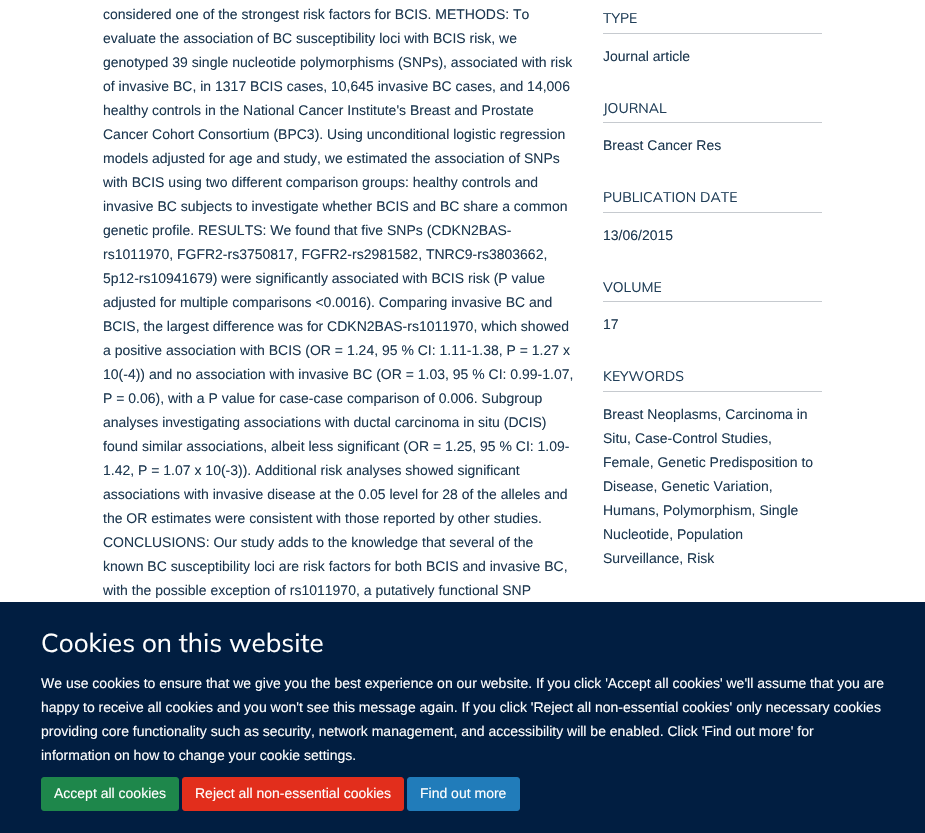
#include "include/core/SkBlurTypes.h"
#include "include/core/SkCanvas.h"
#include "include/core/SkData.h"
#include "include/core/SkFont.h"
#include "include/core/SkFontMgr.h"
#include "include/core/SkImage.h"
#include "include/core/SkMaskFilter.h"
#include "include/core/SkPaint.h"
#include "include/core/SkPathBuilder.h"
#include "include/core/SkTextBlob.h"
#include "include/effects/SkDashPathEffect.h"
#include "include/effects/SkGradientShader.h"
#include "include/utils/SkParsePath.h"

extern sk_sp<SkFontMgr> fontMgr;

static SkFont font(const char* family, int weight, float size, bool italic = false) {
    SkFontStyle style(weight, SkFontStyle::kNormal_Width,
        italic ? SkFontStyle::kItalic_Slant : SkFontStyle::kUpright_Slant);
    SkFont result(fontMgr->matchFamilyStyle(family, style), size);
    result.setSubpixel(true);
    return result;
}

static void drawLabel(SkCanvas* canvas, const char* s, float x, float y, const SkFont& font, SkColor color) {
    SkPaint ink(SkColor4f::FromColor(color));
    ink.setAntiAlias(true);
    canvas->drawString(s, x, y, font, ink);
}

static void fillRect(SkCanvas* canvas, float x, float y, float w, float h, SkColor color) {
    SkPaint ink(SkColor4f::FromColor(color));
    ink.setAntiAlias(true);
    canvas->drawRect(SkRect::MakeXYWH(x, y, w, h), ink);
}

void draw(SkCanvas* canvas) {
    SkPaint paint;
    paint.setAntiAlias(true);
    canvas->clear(0xFFFFFFFF);
    SkFont font1 = font("Liberation Sans", 400, 14);
    drawLabel(canvas, "considered one of the strongest risk factors for BCIS. METHODS: To", 103, 19, font1, 0xFF1D3850);
    drawLabel(canvas, "evaluate the association of BC susceptibility loci with BCIS risk, we", 103, 43, font1, 0xFF1D3850);
    drawLabel(canvas, "genotyped 39 single nucleotide polymorphisms (SNPs), associated with risk", 103, 67, font1, 0xFF1D3850);
    drawLabel(canvas, "of invasive BC, in 1317 BCIS cases, 10,645 invasive BC cases, and 14,006", 103, 91, font1, 0xFF1D3850);
    drawLabel(canvas, "healthy controls in the National Cancer Institute's Breast and Prostate", 103, 115, font1, 0xFF1D3850);
    drawLabel(canvas, "Cancer Cohort Consortium (BPC3). Using unconditional logistic regression", 103, 139, font1, 0xFF1D3850);
    drawLabel(canvas, "models adjusted for age and study, we estimated the association of SNPs", 103, 163, font1, 0xFF1D3850);
    drawLabel(canvas, "with BCIS using two different comparison groups: healthy controls and", 103, 187, font1, 0xFF1D3850);
    drawLabel(canvas, "invasive BC subjects to investigate whether BCIS and BC share a common", 103, 211, font1, 0xFF1D3850);
    drawLabel(canvas, "genetic profile. RESULTS: We found that five SNPs (CDKN2BAS-", 103, 235, font1, 0xFF1D3850);
    drawLabel(canvas, "rs1011970, FGFR2-rs3750817, FGFR2-rs2981582, TNRC9-rs3803662,", 103, 259, font1, 0xFF1D3850);
    drawLabel(canvas, "5p12-rs10941679) were significantly associated with BCIS risk (P value", 103, 283, font1, 0xFF1D3850);
    drawLabel(canvas, "adjusted for multiple comparisons <0.0016). Comparing invasive BC and", 103, 307, font1, 0xFF1D3850);
    drawLabel(canvas, "BCIS, the largest difference was for CDKN2BAS-rs1011970, which showed", 103, 331, font1, 0xFF1D3850);
    drawLabel(canvas, "a positive association with BCIS (OR = 1.24, 95 % CI: 1.11-1.38, P = 1.27 x", 103, 355, font1, 0xFF1D3850);
    drawLabel(canvas, "10(-4)) and no association with invasive BC (OR = 1.03, 95 % CI: 0.99-1.07,", 103, 379, font1, 0xFF1D3850);
    drawLabel(canvas, "P = 0.06), with a P value for case-case comparison of 0.006. Subgroup", 103, 403, font1, 0xFF1D3850);
    drawLabel(canvas, "analyses investigating associations with ductal carcinoma in situ (DCIS)", 103, 427, font1, 0xFF1D3850);
    drawLabel(canvas, "found similar associations, albeit less significant (OR = 1.25, 95 % CI: 1.09-", 103, 451, font1, 0xFF1D3850);
    drawLabel(canvas, "1.42, P = 1.07 x 10(-3)). Additional risk analyses showed significant", 103, 475, font1, 0xFF1D3850);
    drawLabel(canvas, "associations with invasive disease at the 0.05 level for 28 of the alleles and", 103, 499, font1, 0xFF1D3850);
    drawLabel(canvas, "the OR estimates were consistent with those reported by other studies.", 103, 523, font1, 0xFF1D3850);
    drawLabel(canvas, "CONCLUSIONS: Our study adds to the knowledge that several of the", 103, 547, font1, 0xFF1D3850);
    drawLabel(canvas, "known BC susceptibility loci are risk factors for both BCIS and invasive BC,", 103, 571, font1, 0xFF1D3850);
    drawLabel(canvas, "with the possible exception of rs1011970, a putatively functional SNP", 103, 595, font1, 0xFF1D3850);
    fillRect(canvas, 603, 33, 219, 1, 0xFFC6CACF);
    SkFont font2 = font("Mulish", 400, 14);
    drawLabel(canvas, "TYPE", 603, 23, font2, 0xFF203E58);
    drawLabel(canvas, "Journal article", 603, 61, font1, 0xFF1D3850);
    fillRect(canvas, 603, 122, 219, 1, 0xFFC6CACF);
    drawLabel(canvas, "JOURNAL", 603, 113, font2, 0xFF203E58);
    drawLabel(canvas, "Breast Cancer Res", 603, 150, font1, 0xFF1D3850);
    fillRect(canvas, 603, 212, 219, 1, 0xFFC6CACF);
    drawLabel(canvas, "PUBLICATION DATE", 603, 202, font2, 0xFF203E58);
    drawLabel(canvas, "13/06/2015", 603, 240, font1, 0xFF1D3850);
    fillRect(canvas, 603, 301, 219, 1, 0xFFC6CACF);
    drawLabel(canvas, "VOLUME", 603, 292, font2, 0xFF203E58);
    drawLabel(canvas, "17", 603, 329, font1, 0xFF1D3850);
    fillRect(canvas, 603, 391, 219, 1, 0xFFC6CACF);
    drawLabel(canvas, "KEYWORDS", 603, 381, font2, 0xFF203E58);
    drawLabel(canvas, "Breast Neoplasms, Carcinoma in", 603, 419, font1, 0xFF1D3850);
    drawLabel(canvas, "Situ, Case-Control Studies,", 603, 443, font1, 0xFF1D3850);
    drawLabel(canvas, "Female, Genetic Predisposition to", 603, 467, font1, 0xFF1D3850);
    drawLabel(canvas, "Disease, Genetic Variation,", 603, 491, font1, 0xFF1D3850);
    drawLabel(canvas, "Humans, Polymorphism, Single", 603, 515, font1, 0xFF1D3850);
    drawLabel(canvas, "Nucleotide, Population", 603, 539, font1, 0xFF1D3850);
    drawLabel(canvas, "Surveillance, Risk", 603, 563, font1, 0xFF1D3850);
    fillRect(canvas, 0, 602, 925, 231, 0xFF011E41);
    SkFont font3 = font("Mulish", 400, 26);
    drawLabel(canvas, "Cookies on this website", 41, 652, font3, 0xFFFFFFFF);
    drawLabel(canvas, "We use cookies to ensure that we give you the best experience on our website. If you click 'Accept all cookies' we'll assume that you are", 41, 688, font1, 0xFFFFFFFF);
    drawLabel(canvas, "happy to receive all cookies and you won't see this message again. If you click 'Reject all non-essential cookies' only necessary cookies", 41, 712, font1, 0xFFFFFFFF);
    drawLabel(canvas, "providing core functionality such as security, network management, and accessibility will be enabled. Click 'Find out more' for", 41, 736, font1, 0xFFFFFFFF);
    drawLabel(canvas, "information on how to change your cookie settings.", 41, 760, font1, 0xFFFFFFFF);
    paint.setColor(0xFF1E874B);
    canvas->drawRoundRect(SkRect::MakeXYWH(41.5f, 777.5f, 137, 33), 2.5f, 2.5f, paint);
    paint.setStroke(true);
    paint.setStrokeWidth(1);
    canvas->drawRoundRect(SkRect::MakeXYWH(41.5f, 777.5f, 137, 33), 2.5f, 2.5f, paint);
    drawLabel(canvas, "Accept all cookies", 54, 798, font1, 0xFFFFFFFF);
    paint.setStroke(false);
    paint.setColor(0xFFE22E1C);
    canvas->drawRoundRect(SkRect::MakeXYWH(182.5f, 777.5f, 221, 33), 2.5f, 2.5f, paint);
    paint.setStroke(true);
    canvas->drawRoundRect(SkRect::MakeXYWH(182.5f, 777.5f, 221, 33), 2.5f, 2.5f, paint);
    drawLabel(canvas, "Reject all non-essential cookies", 195, 798, font1, 0xFFFFFFFF);
    paint.setStroke(false);
    paint.setColor(0xFF217CBA);
    canvas->drawRoundRect(SkRect::MakeXYWH(407.5f, 777.5f, 112, 33), 2.5f, 2.5f, paint);
    paint.setStroke(true);
    canvas->drawRoundRect(SkRect::MakeXYWH(407.5f, 777.5f, 112, 33), 2.5f, 2.5f, paint);
    drawLabel(canvas, "Find out more", 420, 798, font1, 0xFFFFFFFF);
}
